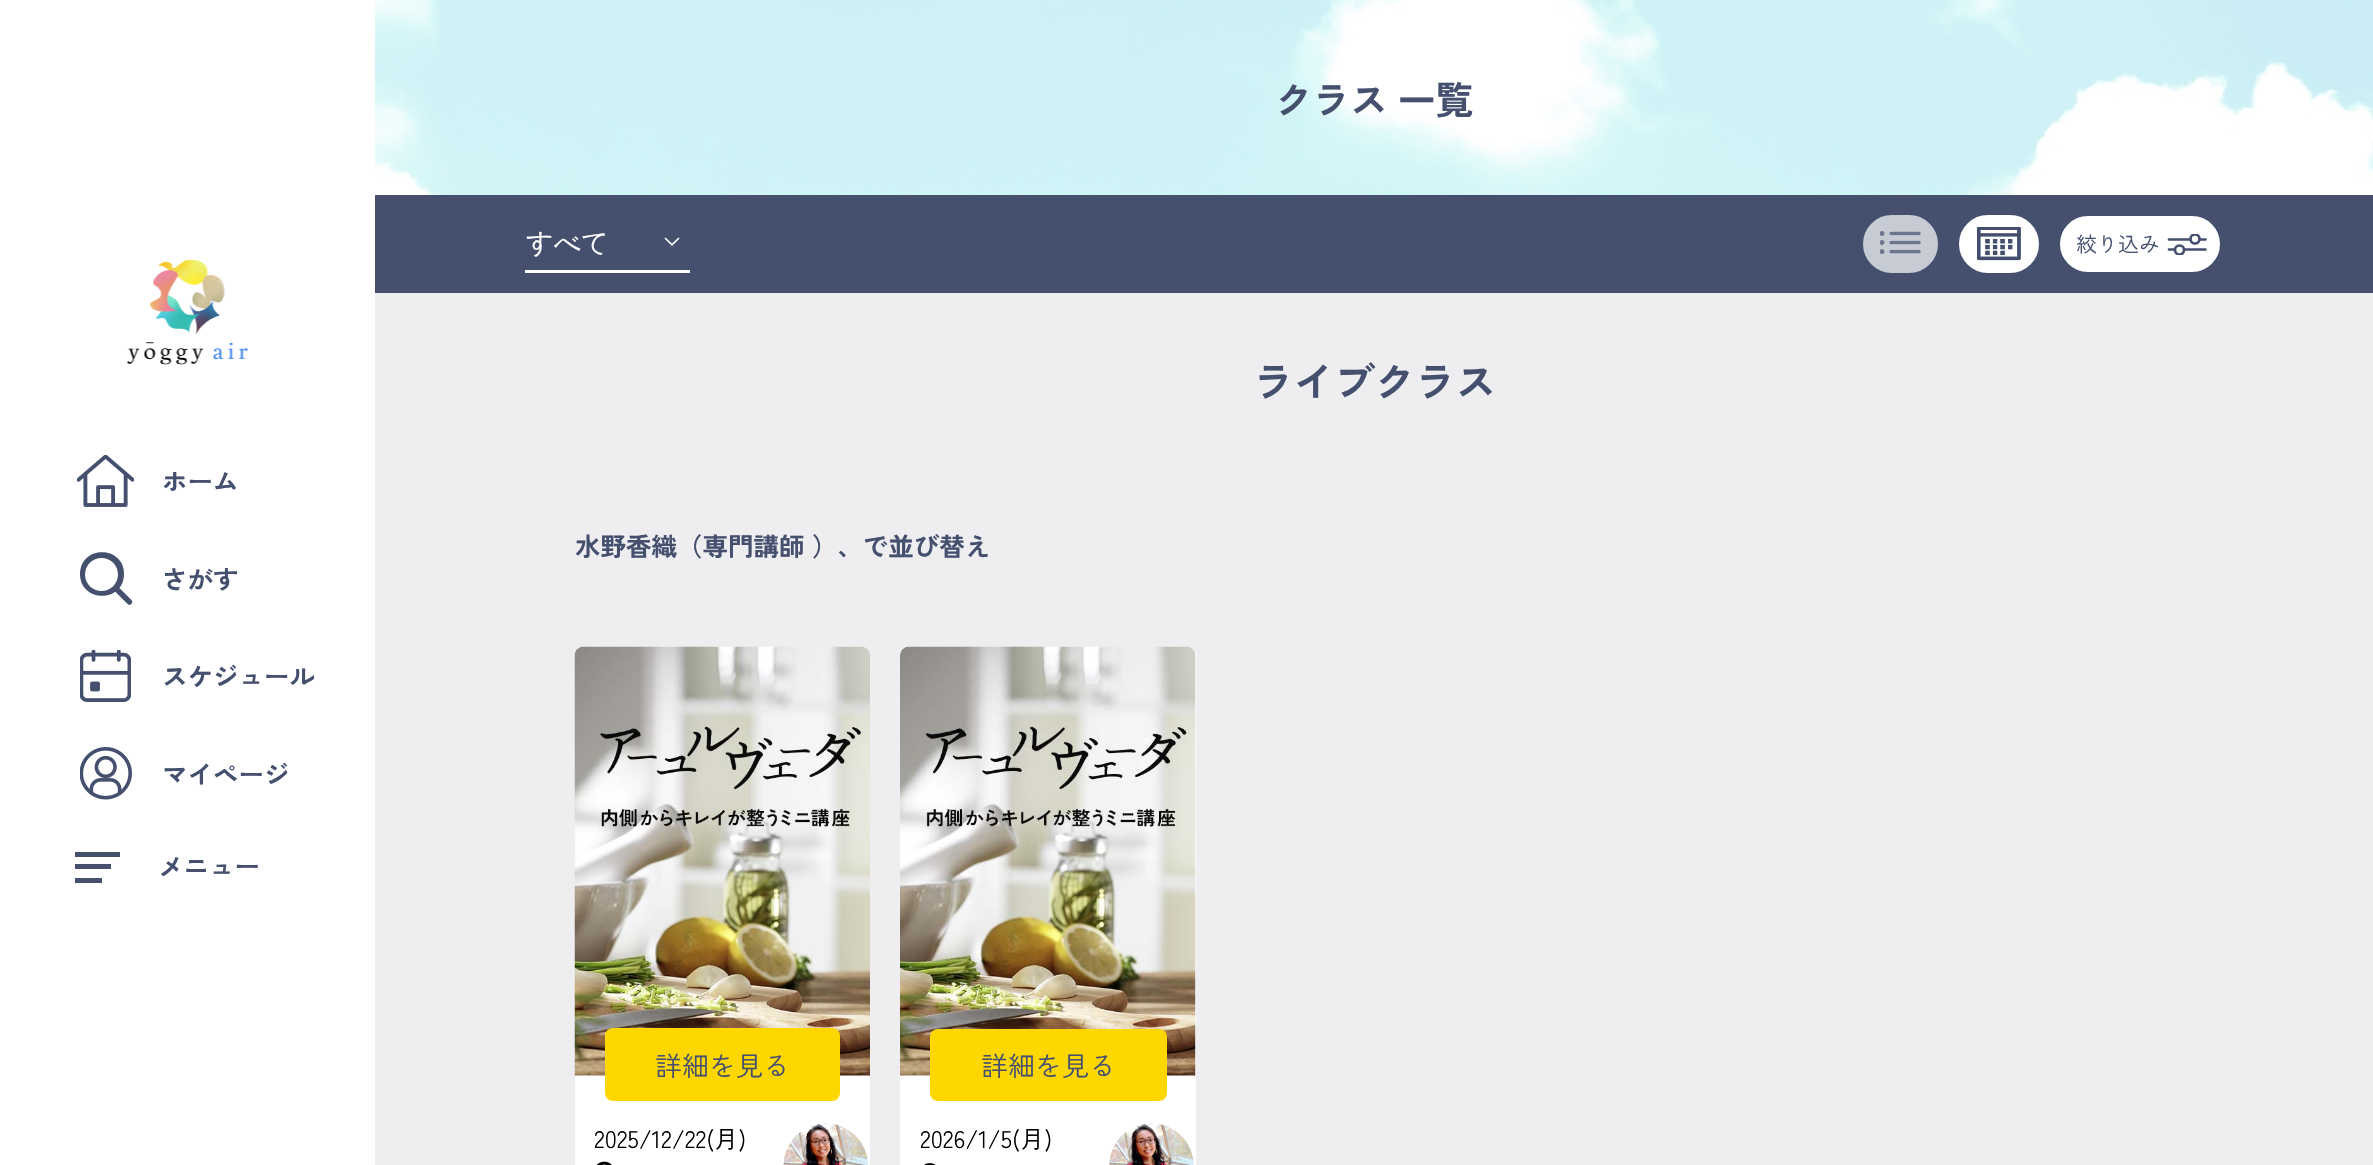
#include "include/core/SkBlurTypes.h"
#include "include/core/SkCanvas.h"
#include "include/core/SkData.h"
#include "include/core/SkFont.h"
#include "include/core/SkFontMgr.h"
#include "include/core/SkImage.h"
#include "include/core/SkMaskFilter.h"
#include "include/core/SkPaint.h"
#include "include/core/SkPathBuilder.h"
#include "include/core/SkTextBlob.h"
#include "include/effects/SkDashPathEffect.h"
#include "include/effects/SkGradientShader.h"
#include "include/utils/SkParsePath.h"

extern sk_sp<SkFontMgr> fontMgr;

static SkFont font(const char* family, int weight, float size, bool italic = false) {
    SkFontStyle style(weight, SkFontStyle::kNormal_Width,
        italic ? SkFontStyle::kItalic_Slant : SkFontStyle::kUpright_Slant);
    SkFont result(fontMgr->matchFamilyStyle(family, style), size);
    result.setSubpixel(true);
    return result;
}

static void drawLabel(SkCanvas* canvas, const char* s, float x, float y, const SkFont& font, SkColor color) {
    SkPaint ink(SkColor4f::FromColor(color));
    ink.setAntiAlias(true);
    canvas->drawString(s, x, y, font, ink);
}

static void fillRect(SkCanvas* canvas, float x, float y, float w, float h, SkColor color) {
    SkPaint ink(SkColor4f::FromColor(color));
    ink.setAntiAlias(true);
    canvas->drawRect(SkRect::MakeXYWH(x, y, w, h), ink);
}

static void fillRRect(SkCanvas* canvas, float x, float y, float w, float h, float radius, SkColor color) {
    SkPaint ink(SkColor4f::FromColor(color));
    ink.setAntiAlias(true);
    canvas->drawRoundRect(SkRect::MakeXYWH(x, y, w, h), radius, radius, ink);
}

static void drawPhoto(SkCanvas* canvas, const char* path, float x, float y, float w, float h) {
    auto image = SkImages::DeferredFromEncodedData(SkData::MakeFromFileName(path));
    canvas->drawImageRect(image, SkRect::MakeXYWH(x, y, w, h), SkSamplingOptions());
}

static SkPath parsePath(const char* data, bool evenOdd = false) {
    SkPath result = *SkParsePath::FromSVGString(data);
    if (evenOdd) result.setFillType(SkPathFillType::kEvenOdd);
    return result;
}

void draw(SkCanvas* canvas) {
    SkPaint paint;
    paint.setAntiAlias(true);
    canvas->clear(0xFFFFFFFF);
    drawPhoto(canvas, "assets/img1.png", 127, 260, 121, 105);
    drawPhoto(canvas, "assets/img2.png", 77, 455, 57, 52);
    SkFont font1 = font("Zen Kaku Gothic New", 700, 25.5f);
    drawLabel(canvas, "ホーム", 162, 491, font1, 0xFF45506F);
    paint.setColor(0xFF45506F);
    canvas->drawPath(parsePath("M80 574C80 603 124 603 124 574C124 545 80 545 80 574"), paint);
    paint.setStroke(true);
    paint.setStrokeWidth(5.4f);
    paint.setStrokeCap(SkPaint::kRound_Cap);
    paint.setStrokeJoin(SkPaint::kRound_Join);
    canvas->drawPath(parsePath("M129.5 602L117 589.5"), paint);
    paint.setStroke(false);
    paint.setColor(0xFFFFFFFF);
    canvas->drawCircle(101.5f, 574.5f, 16.5f, paint);
    drawLabel(canvas, "さがす", 162, 589, font1, 0xFF45506F);
    drawPhoto(canvas, "assets/img3.png", 80, 650, 51, 52);
    drawLabel(canvas, "スケジュール", 162, 686, font1, 0xFF45506F);
    drawPhoto(canvas, "assets/img4.png", 80, 747, 52, 53);
    drawLabel(canvas, "マイページ", 162, 784, font1, 0xFF45506F);
    fillRect(canvas, 75, 852, 45, 5, 0xFF45506F);
    fillRect(canvas, 75, 864, 36, 5, 0xFF45506F);
    fillRect(canvas, 75, 878, 27, 5, 0xFF45506F);
    drawLabel(canvas, "メニュー", 158, 876, font1, 0xFF45506F);
    fillRect(canvas, 375, 293, 1998, 872, 0xFFEEEEF0);
    drawPhoto(canvas, "assets/img5.png", 375, 0, 1998, 195);
    SkFont font2 = font("Zen Kaku Gothic New", 700, 37.5f);
    drawLabel(canvas, "クラス 一覧", 1275, 114, font2, 0xFF45506F);
    fillRect(canvas, 375, 195, 1998, 98, 0xFF45506F);
    fillRect(canvas, 525, 270, 165, 3, 0xFFFFFFFF);
    SkFont font3 = font("WenQuanYi Zen Hei", 500, 27);
    drawLabel(canvas, "すべて", 526, 252, font3, 0xFFFFFFFF);
    canvas->drawPath(parsePath("M679.5 238.5L672 246L671 244.5L678.5 237.5Z"), paint);
    canvas->drawPath(parsePath("M673 244.5L672 246L664.5 238.5L665.5 237.5Z"), paint);
    paint.setColor(0xFFC7CBD4);
    canvas->drawRoundRect(SkRect::MakeXYWH(1861.5f, 213.5f, 78, 61), 30.5f, 30.5f, paint);
    paint.setStroke(true);
    paint.setStrokeWidth(3);
    paint.setStrokeCap(SkPaint::kButt_Cap);
    paint.setStrokeJoin(SkPaint::kMiter_Join);
    paint.setColor(0xFF45506F);
    canvas->drawRoundRect(SkRect::MakeXYWH(1861.5f, 213.5f, 78, 61), 30.5f, 30.5f, paint);
    drawPhoto(canvas, "assets/img6.png", 1880, 231, 41, 23);
    paint.setStroke(false);
    paint.setColor(0xFFFFFFFF);
    canvas->drawRoundRect(SkRect::MakeXYWH(1957.5f, 213.5f, 83, 61), 30.5f, 30.5f, paint);
    paint.setStroke(true);
    paint.setColor(0xFF45506F);
    canvas->drawRoundRect(SkRect::MakeXYWH(1957.5f, 213.5f, 83, 61), 30.5f, 30.5f, paint);
    drawPhoto(canvas, "assets/img7.png", 1977, 227, 44, 34);
    paint.setStroke(false);
    paint.setColor(0xFFFFFFFF);
    canvas->drawRoundRect(SkRect::MakeXYWH(2058.5f, 214.5f, 163, 59), 29.5f, 29.5f, paint);
    paint.setStroke(true);
    paint.setColor(0xFF45506F);
    canvas->drawRoundRect(SkRect::MakeXYWH(2058.5f, 214.5f, 163, 59), 29.5f, 29.5f, paint);
    SkFont font4 = font("Zen Kaku Gothic New", 400, 21);
    drawLabel(canvas, "絞り込み", 2076, 252, font4, 0xFF45506F);
    paint.setStrokeWidth(2.7f);
    paint.setStrokeCap(SkPaint::kRound_Cap);
    paint.setStrokeJoin(SkPaint::kRound_Join);
    canvas->drawPath(parsePath("M2205.5 249.5H2169M2169 239.5H2205.5"), paint);
    paint.setStroke(false);
    paint.setColor(0xFFFFFFFF);
    canvas->drawCircle(2195, 239, 4.5f, paint);
    canvas->save();
    canvas->clipRect(SkRect::MakeXYWH(2168, 234, 39, 21));
    paint.setStroke(true);
    paint.setStrokeCap(SkPaint::kButt_Cap);
    paint.setStrokeJoin(SkPaint::kMiter_Join);
    paint.setColor(0xFF45506F);
    canvas->drawCircle(2195, 239, 4.5f, paint);
    canvas->restore();
    paint.setStroke(false);
    paint.setColor(0xFFFFFFFF);
    canvas->drawCircle(2179.5f, 250, 4.5f, paint);
    canvas->save();
    canvas->clipRect(SkRect::MakeXYWH(2168, 234, 39, 21));
    paint.setStroke(true);
    paint.setColor(0xFF45506F);
    canvas->drawCircle(2179.5f, 250, 4.5f, paint);
    canvas->restore();
    SkFont font5 = font("Zen Kaku Gothic New", 700, 40.5f);
    drawLabel(canvas, "ライブクラス", 1253, 397, font5, 0xFF45506F);
    drawLabel(canvas, "水野香織（専門講師 ）、で並び替え", 575, 556, font1, 0xFF45506F);
    fillRRect(canvas, 575, 647, 295, 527, 9, 0xFFFFFFFF);
    drawPhoto(canvas, "assets/img8.png", 574, 646, 296, 430);
    fillRRect(canvas, 605, 1028, 235, 73, 8, 0xFFFFD700);
    SkFont font6 = font("Zen Kaku Gothic New", 400, 27);
    drawLabel(canvas, "詳細を見る", 655, 1076, font6, 0xFF45506F);
    SkFont font7 = font("Zen Kaku Gothic New", 400, 24);
    drawLabel(canvas, "2025/12/22(月)", 594, 1148, font7, 0xFF000000);
    drawPhoto(canvas, "assets/img9.png", 596, 1161, 16, 4);
    drawPhoto(canvas, "assets/img10.png", 783, 1123, 85, 42);
    fillRRect(canvas, 900, 647, 296, 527, 9, 0xFFFFFFFF);
    drawPhoto(canvas, "assets/img11.png", 900, 646, 296, 430);
    fillRRect(canvas, 930, 1029, 237, 72, 8, 0xFFFFD700);
    drawLabel(canvas, "詳細を見る", 981, 1076, font6, 0xFF45506F);
    drawLabel(canvas, "2026/1/5(月)", 920, 1148, font7, 0xFF000000);
    drawPhoto(canvas, "assets/img12.png", 924, 1163, 12, 2);
    drawPhoto(canvas, "assets/img13.png", 1109, 1123, 85, 42);
}
